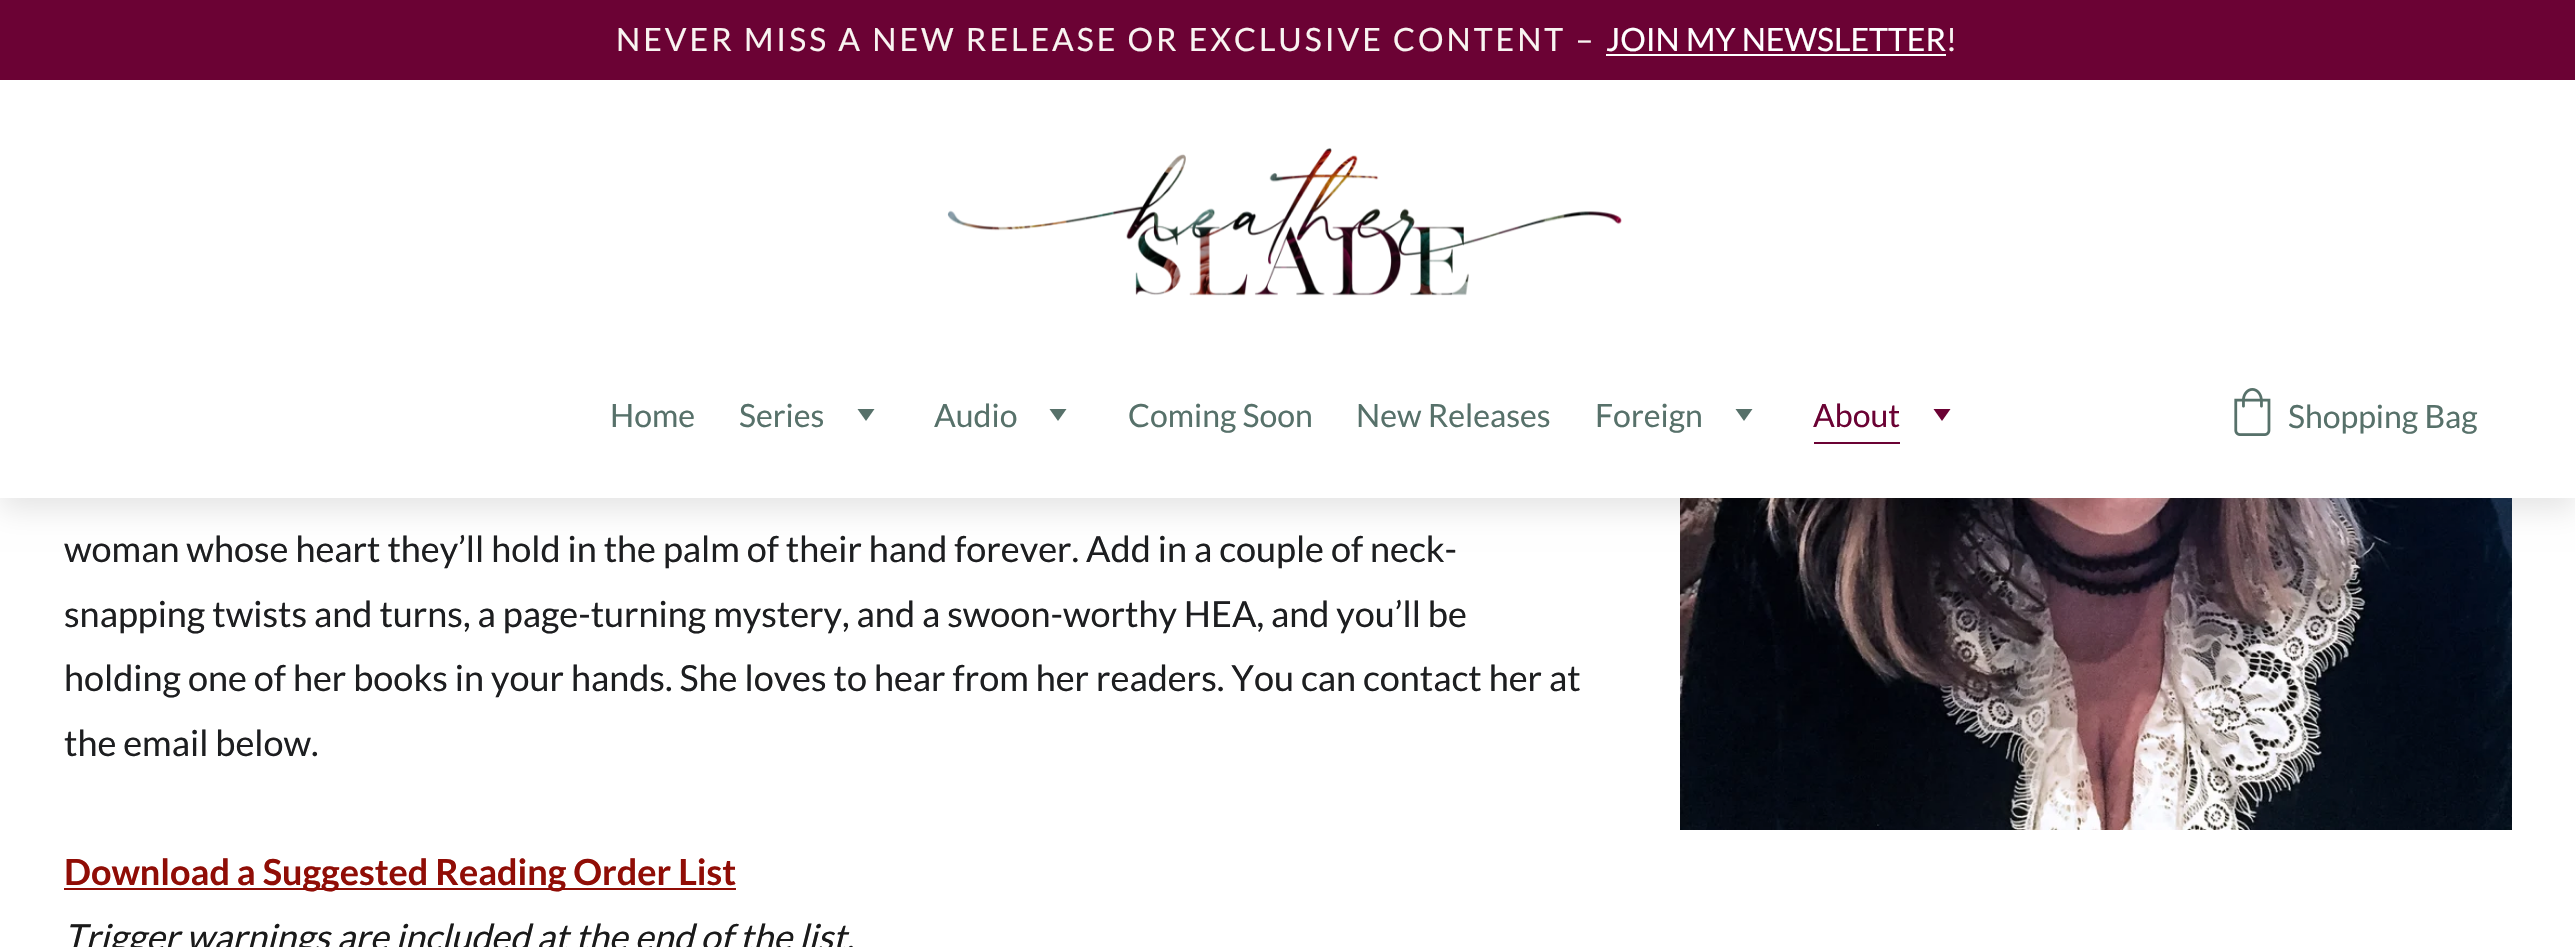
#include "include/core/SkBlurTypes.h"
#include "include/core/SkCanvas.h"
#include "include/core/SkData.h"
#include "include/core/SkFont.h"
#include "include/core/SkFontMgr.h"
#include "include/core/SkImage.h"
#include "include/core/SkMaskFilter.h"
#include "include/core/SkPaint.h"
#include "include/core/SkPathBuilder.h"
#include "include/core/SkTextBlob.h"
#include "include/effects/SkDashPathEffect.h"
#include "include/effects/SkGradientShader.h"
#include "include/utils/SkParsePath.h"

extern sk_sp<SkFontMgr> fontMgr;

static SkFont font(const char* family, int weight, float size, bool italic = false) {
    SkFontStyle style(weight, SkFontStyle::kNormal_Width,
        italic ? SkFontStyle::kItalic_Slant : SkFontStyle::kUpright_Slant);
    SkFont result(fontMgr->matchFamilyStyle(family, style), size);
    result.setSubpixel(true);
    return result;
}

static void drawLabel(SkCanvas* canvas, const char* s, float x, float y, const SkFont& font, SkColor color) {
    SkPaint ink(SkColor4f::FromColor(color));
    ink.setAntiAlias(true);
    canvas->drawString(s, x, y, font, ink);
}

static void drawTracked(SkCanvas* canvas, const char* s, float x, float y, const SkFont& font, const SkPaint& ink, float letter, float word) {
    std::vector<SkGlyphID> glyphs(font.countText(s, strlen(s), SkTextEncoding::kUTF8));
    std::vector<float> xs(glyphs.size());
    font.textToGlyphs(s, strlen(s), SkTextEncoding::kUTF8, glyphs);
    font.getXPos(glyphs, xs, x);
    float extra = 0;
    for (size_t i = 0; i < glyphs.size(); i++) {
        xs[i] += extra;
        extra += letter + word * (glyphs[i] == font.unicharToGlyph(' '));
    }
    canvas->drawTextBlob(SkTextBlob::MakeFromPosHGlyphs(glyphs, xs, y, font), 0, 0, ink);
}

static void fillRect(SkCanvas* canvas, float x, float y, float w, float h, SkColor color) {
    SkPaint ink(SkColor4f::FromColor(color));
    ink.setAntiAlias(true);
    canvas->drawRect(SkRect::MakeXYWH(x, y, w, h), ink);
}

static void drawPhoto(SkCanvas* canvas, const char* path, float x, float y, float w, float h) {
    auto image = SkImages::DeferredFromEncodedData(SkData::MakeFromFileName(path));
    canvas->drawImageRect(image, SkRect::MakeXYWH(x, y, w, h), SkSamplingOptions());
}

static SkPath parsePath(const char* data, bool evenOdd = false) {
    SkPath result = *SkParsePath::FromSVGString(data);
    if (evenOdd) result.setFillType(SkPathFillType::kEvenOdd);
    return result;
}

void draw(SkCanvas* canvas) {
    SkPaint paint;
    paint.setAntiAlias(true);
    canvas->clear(0xFFFFFFFF);
    drawPhoto(canvas, "assets/img3.png", 1680, 498, 832, 332);
    paint.setColor(0x1A000000);
    paint.setMaskFilter(SkMaskFilter::MakeBlur(kNormal_SkBlurStyle, 14));
    canvas->drawRect(SkRect::MakeXYWH(0, 92, 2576, 418), paint);
    paint.setMaskFilter(nullptr);
    fillRect(canvas, 0, 0, 2575, 80, 0xFF6B0234);
    SkFont font1 = font("Lato", 400, 32);
    paint.setColor(0xFFF9F4F1);
    drawTracked(canvas, "NEVER MISS A NEW RELEASE OR EXCLUSIVE CONTENT –", 616, 51, font1, paint, 3, 0);
    drawLabel(canvas, "JOIN MY NEWSLETTER", 1606, 51, font1, 0xFFFFFFFF);
    fillRect(canvas, 1606, 54, 340, 2, 0xFFFFFFFF);
    drawTracked(canvas, "!", 1946, 51, font1, paint, 3, 0);
    fillRect(canvas, 0, 80, 2575, 418, 0xFFFFFFFF);
    drawPhoto(canvas, "assets/img1.png", 947, 148, 675, 148);
    drawLabel(canvas, "Home", 610, 427, font1, 0xFF57716A);
    drawLabel(canvas, "Series", 739, 427, font1, 0xFF57716A);
    paint.setColor(0xFF57716A);
    canvas->drawPath(parsePath("M866 421L857.5 409H874.5Z"), paint);
    drawLabel(canvas, "Audio", 934, 427, font1, 0xFF57716A);
    canvas->drawPath(parsePath("M1058 421L1049.5 409H1066.5Z"), paint);
    drawLabel(canvas, "Coming Soon", 1128, 427, font1, 0xFF57716A);
    drawLabel(canvas, "New Releases", 1356, 427, font1, 0xFF57716A);
    drawLabel(canvas, "Foreign", 1595, 427, font1, 0xFF57716A);
    canvas->drawPath(parsePath("M1744 421L1735.5 409H1752.5Z"), paint);
    drawLabel(canvas, "About", 1813, 427, font1, 0xFF6B0234);
    fillRect(canvas, 1814, 442, 86, 2, 0xFF6B0234);
    paint.setColor(0xFF6B0234);
    canvas->drawPath(parsePath("M1942 421L1933.5 409H1950.5Z"), paint);
    drawPhoto(canvas, "assets/img2.png", 2234, 388, 37, 48);
    drawLabel(canvas, "Shopping Bag", 2288, 428, font1, 0xFF57716A);
    SkFont font2 = font("Lato", 400, 36);
    drawLabel(canvas, "woman whose heart they’ll hold in the palm of their hand forever. Add in a couple of neck-", 64, 562, font2, 0xFF1D1E20);
    drawLabel(canvas, "snapping twists and turns, a page-turning mystery, and a swoon-worthy HEA, and you’ll be", 64, 627, font2, 0xFF1D1E20);
    drawLabel(canvas, "holding one of her books in your hands. She loves to hear from her readers. You can contact her at", 64, 691, font2, 0xFF1D1E20);
    drawLabel(canvas, "the email below.", 64, 756, font2, 0xFF1D1E20);
    fillRect(canvas, 64, 888, 672, 2, 0xFF900D06);
    SkFont font3 = font("Lato", 700, 36);
    drawLabel(canvas, "Download a Suggested Reading Order List", 64, 885, font3, 0xFF900D06);
    SkFont font4 = font("Lato", 400, 36, true);
    drawLabel(canvas, "Trigger warnings are included at the end of the list.", 64, 950, font4, 0xFF1A1A1A);
}
